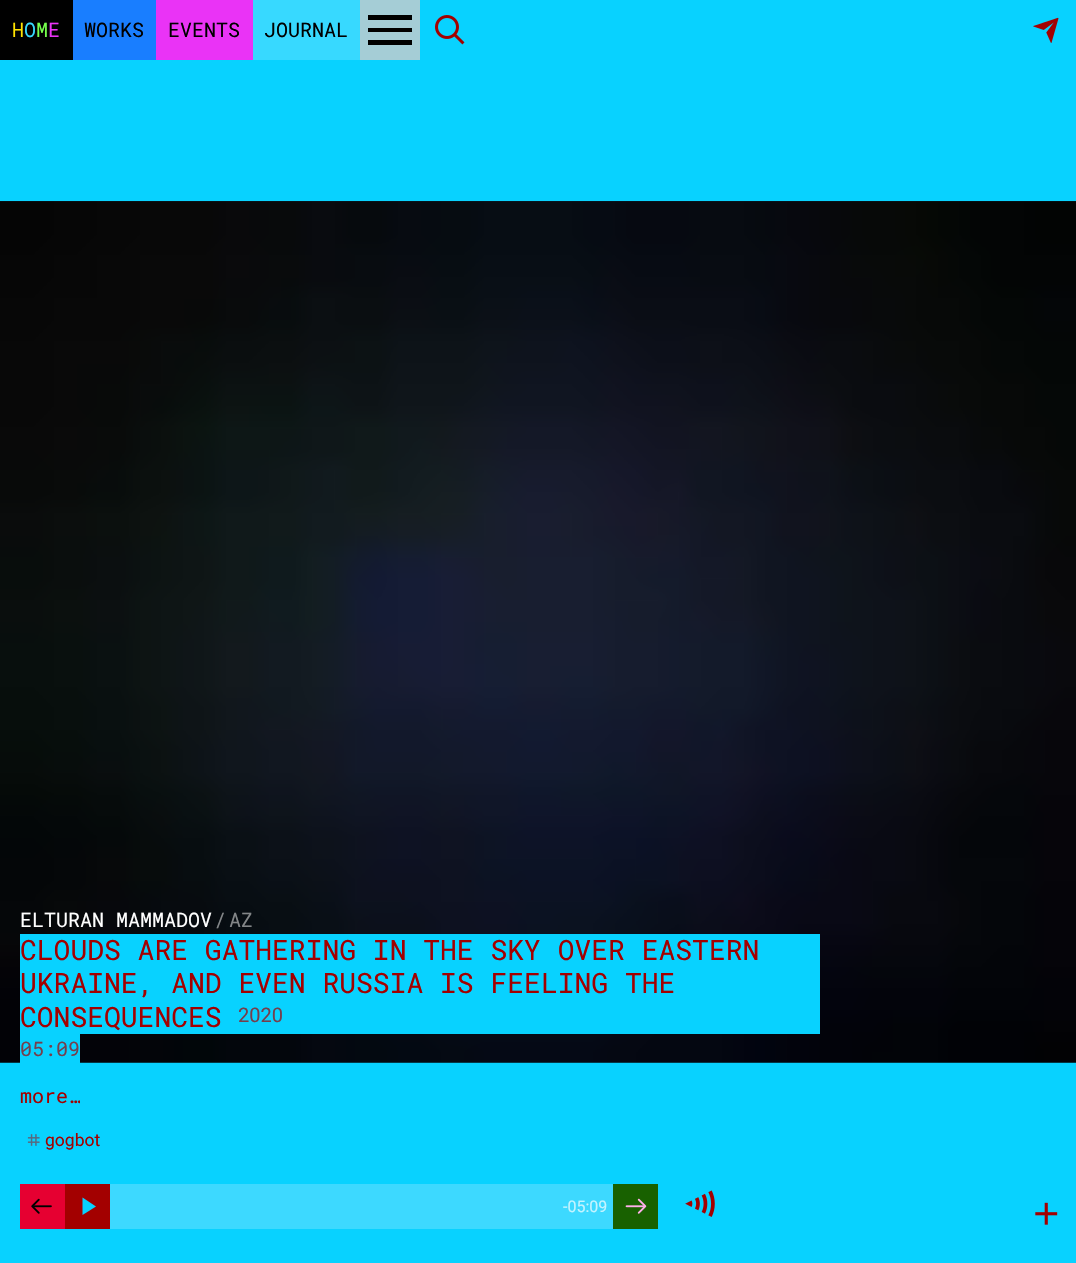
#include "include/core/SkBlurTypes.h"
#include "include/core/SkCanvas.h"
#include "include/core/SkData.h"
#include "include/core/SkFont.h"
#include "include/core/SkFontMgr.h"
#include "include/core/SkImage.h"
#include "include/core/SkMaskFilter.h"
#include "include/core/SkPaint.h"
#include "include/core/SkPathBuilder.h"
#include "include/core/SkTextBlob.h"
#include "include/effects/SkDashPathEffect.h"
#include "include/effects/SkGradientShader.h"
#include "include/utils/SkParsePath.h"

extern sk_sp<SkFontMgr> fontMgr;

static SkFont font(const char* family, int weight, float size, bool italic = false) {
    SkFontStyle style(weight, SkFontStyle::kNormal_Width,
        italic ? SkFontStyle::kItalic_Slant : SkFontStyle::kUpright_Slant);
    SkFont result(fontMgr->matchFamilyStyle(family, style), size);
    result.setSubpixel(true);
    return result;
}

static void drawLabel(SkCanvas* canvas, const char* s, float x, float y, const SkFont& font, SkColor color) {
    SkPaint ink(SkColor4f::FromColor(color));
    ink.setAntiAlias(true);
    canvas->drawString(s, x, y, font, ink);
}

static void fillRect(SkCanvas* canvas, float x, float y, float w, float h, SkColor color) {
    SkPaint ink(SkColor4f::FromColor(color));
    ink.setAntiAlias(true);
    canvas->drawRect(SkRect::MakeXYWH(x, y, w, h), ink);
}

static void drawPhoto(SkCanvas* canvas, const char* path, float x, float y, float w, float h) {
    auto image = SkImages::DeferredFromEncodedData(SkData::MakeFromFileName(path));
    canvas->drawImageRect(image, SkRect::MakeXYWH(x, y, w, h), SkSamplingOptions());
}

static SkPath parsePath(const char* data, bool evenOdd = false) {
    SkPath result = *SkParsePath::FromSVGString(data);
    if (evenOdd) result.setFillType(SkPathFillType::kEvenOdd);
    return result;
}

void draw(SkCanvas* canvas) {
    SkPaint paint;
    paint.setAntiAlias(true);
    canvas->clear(0xFF08D2FF);
    fillRect(canvas, 0, 0, 73, 60, 0xFF000000);
    SkFont font1 = font("Roboto Mono", 400, 20);
    {
        const SkColor colors[] = {0xFFCCCCCC, 0xFFCCCCCC, 0xFFFFE300, 0xFFFFE300, 0xFF37D9FF, 0xFF37D9FF, 0xFF75FF4C, 0xFF75FF4C, 0xFFEA33F6, 0xFFEA33F6, 0xFFFF1400, 0xFFFF1400, 0xFF197EFF, 0xFF197EFF, 0xFF8A8A8A, 0xFF8A8A8A, 0xFF5B8FA9, 0xFF5B8FA9};
        const float stops[] = {0, 0.11f, 0.11f, 0.22f, 0.22f, 0.33f, 0.33f, 0.44f, 0.44f, 0.56f, 0.56f, 0.67f, 0.67f, 0.78f, 0.78f, 0.89f, 0.89f, 1};
        const SkPoint ends[] = {{0, 30}, {108, 30}};
        paint.setShader(SkGradientShader::MakeLinear(ends, colors, stops, 18, SkTileMode::kClamp));
        paint.setAlpha(255);
    }
    canvas->drawString("HOME", 12, 37, font1, paint);
    fillRect(canvas, 73, 0, 83, 60, 0xFF197EFF);
    drawLabel(canvas, "WORKS", 84, 37, font1, 0xFF000000);
    fillRect(canvas, 156, 0, 97, 60, 0xFFEA33F6);
    drawLabel(canvas, "EVENTS", 168, 37, font1, 0xFF000000);
    fillRect(canvas, 253, 0, 107, 60, 0xFF37D9FF);
    drawLabel(canvas, "JOURNAL", 264, 37, font1, 0xFF000000);
    fillRect(canvas, 360, 0, 60, 60, 0xFFA5CDD6);
    paint.setShader(nullptr);
    paint.setColor(0xFF000000);
    canvas->drawPath(parsePath("M368 15H412V20H368ZM368 28H412V32H368ZM368 40H412V45H368Z"), paint);
    drawPhoto(canvas, "assets/img1.png", 435, 15, 30, 30);
    drawPhoto(canvas, "assets/img2.png", 1033, 17, 26, 26);
    drawPhoto(canvas, "assets/img3.png", 0, 201, 1076, 862);
    drawPhoto(canvas, "assets/img4.png", 0, 201, 1076, 862);
    drawLabel(canvas, "ELTURAN MAMMADOV", 20, 927, font1, 0xFFFFFFFF);
    drawLabel(canvas, "/", 214, 927, font1, 0xFF838688);
    drawLabel(canvas, "AZ", 229, 927, font1, 0xFF838688);
    fillRect(canvas, 20, 934, 800, 100, 0xFF08D2FF);
    SkFont font2 = font("Roboto Mono", 400, 28);
    drawLabel(canvas, "CLOUDS ARE GATHERING IN THE SKY OVER EASTERN", 20, 960, font2, 0xFFA30000);
    drawLabel(canvas, "UKRAINE, AND EVEN RUSSIA IS FEELING THE", 20, 993, font2, 0xFFA30000);
    drawLabel(canvas, "CONSEQUENCES", 20, 1027, font2, 0xFFA30000);
    SkFont font3 = font("Roboto", 400, 20);
    drawLabel(canvas, "2020", 238, 1022, font3, 0xFF753F4D);
    fillRect(canvas, 20, 1034, 60, 29, 0xFF08D2FF);
    drawLabel(canvas, "05:09", 20, 1056, font1, 0xFF753F4D);
    canvas->save();
    canvas->clipRect(SkRect::MakeXYWH(20, 1073, 60, 45));
    drawLabel(canvas, "more…", 20, 1103, font1, 0xFFA30000);
    canvas->restore();
    drawPhoto(canvas, "assets/img5.png", 27, 1134, 13, 12);
    SkFont font4 = font("Roboto", 400, 17.5f);
    drawLabel(canvas, "gogbot", 45, 1146, font4, 0xFFA30000);
    fillRect(canvas, 20, 1184, 45, 45, 0xFFE60031);
    drawPhoto(canvas, "assets/img6.png", 31, 1198, 21, 16);
    fillRect(canvas, 110, 1184, 503, 45, 0xFF3DD9FF);
    fillRect(canvas, 65, 1184, 45, 45, 0xFFA30000);
    paint.setColor(0xFF08D2FF);
    canvas->drawPath(parsePath("M82.5 1197.5V1215L96 1206.5Z"), paint);
    SkFont font5 = font("Roboto", 400, 16);
    drawLabel(canvas, "-05:09", 563, 1212, font5, 0xFFC5F4FF);
    fillRect(canvas, 613, 1184, 45, 45, 0xFF186100);
    drawPhoto(canvas, "assets/img7.png", 625, 1198, 22, 16);
    drawPhoto(canvas, "assets/img8.png", 685, 1190, 30, 27);
    drawPhoto(canvas, "assets/img9.png", 1035, 1202, 23, 23);
}
